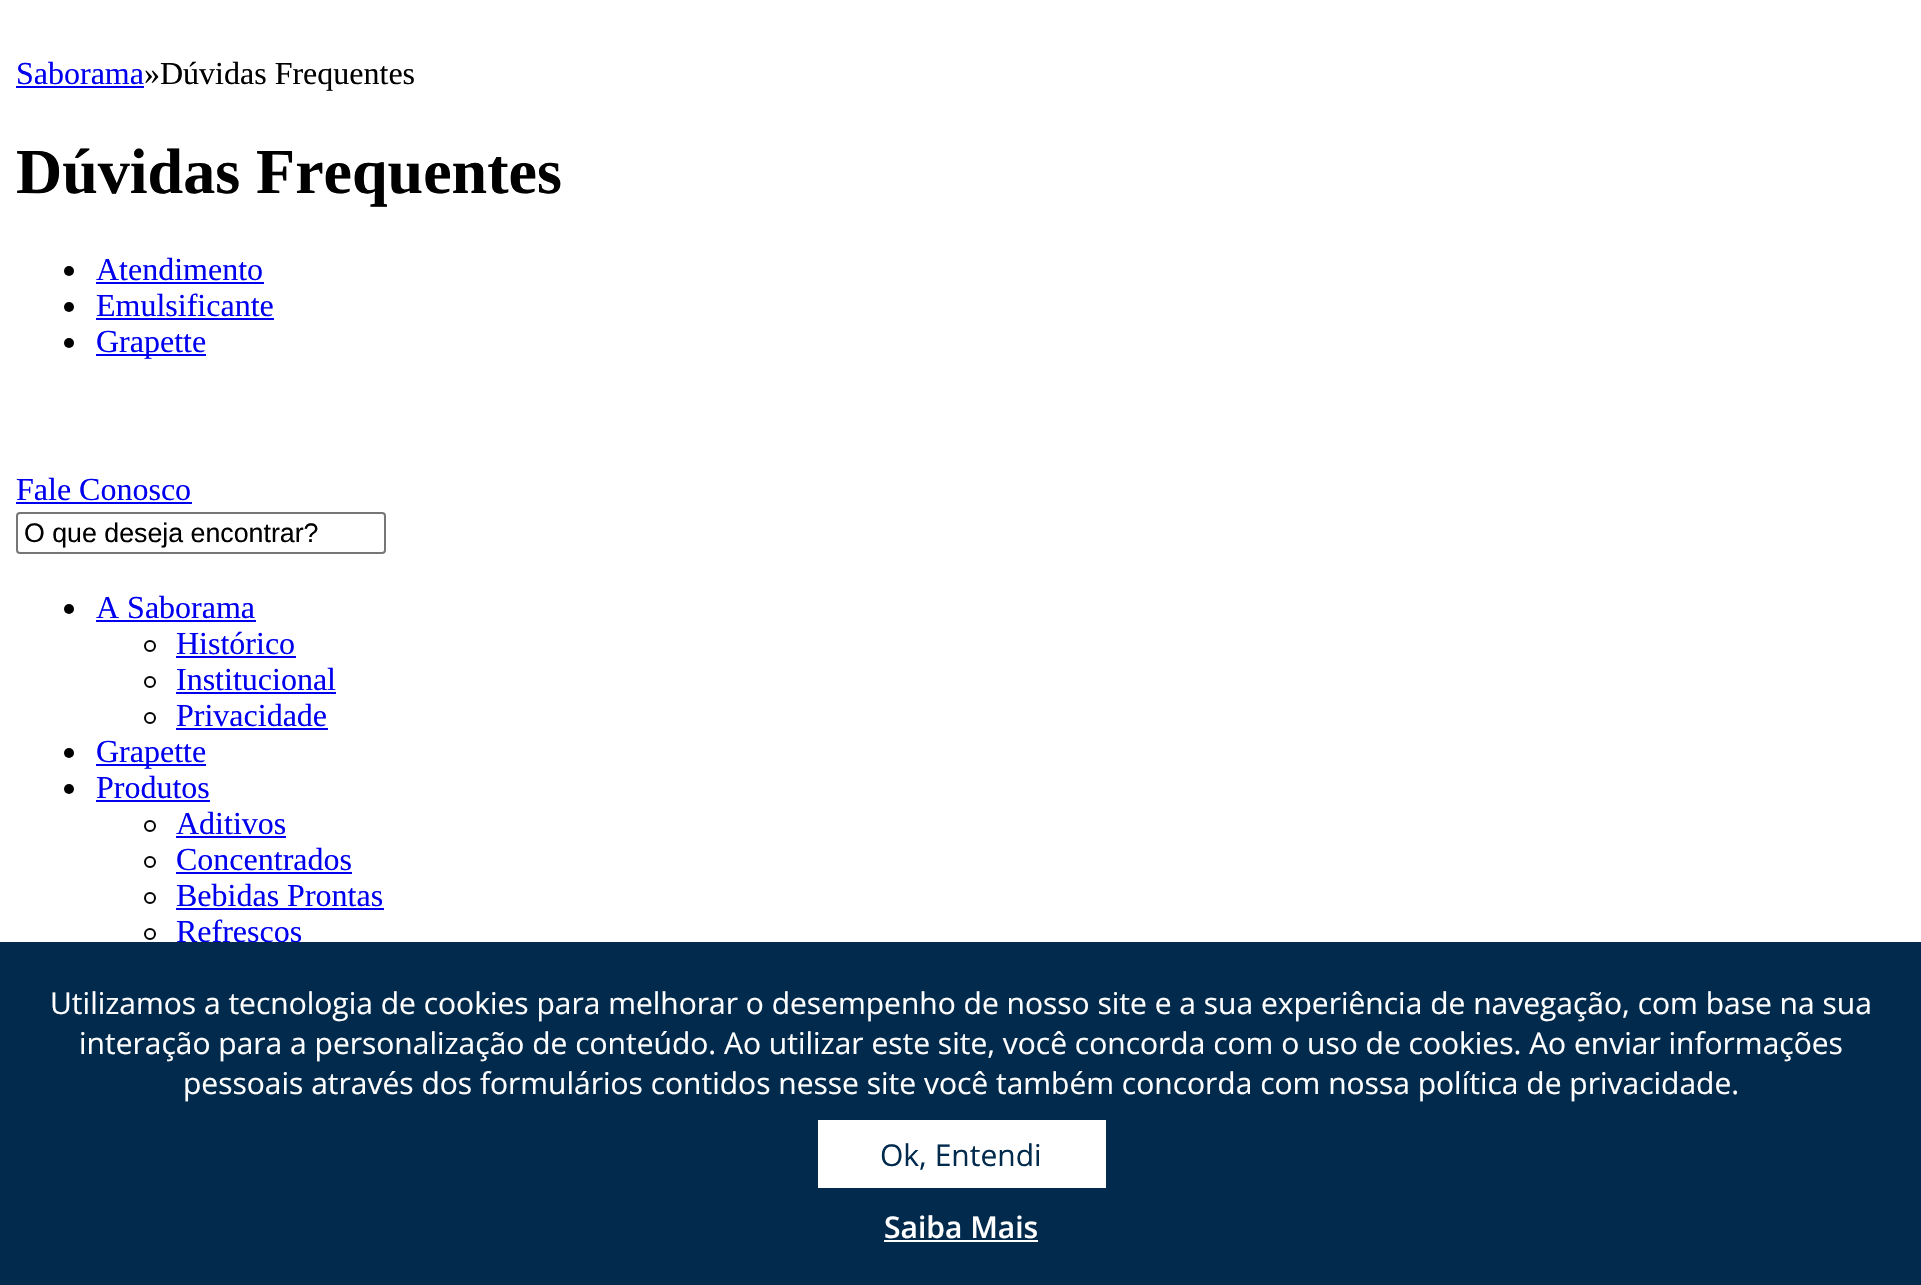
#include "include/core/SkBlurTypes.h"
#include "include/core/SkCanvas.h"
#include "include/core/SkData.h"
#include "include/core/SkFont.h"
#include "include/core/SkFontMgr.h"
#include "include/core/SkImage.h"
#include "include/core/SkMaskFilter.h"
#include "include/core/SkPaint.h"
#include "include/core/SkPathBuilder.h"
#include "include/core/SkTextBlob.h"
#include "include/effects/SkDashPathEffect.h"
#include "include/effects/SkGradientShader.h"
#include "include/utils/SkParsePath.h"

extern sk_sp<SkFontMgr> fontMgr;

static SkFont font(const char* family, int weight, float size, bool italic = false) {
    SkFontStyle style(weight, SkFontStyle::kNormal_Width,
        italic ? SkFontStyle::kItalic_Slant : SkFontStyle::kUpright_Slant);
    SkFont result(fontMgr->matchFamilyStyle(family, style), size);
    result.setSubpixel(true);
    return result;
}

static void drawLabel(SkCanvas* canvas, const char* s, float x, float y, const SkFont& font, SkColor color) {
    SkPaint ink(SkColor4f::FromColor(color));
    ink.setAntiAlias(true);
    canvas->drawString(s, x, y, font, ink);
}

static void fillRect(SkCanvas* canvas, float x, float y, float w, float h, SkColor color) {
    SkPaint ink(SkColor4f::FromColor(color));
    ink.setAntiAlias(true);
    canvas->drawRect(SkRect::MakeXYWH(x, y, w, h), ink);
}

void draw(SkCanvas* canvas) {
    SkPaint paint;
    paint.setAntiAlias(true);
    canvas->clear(0xFFFFFFFF);
    SkFont font1 = font("Liberation Serif", 400, 32);
    drawLabel(canvas, "Saborama", 16, 84, font1, 0xFF0000EE);
    fillRect(canvas, 16, 86, 128, 2, 0xFF0000EE);
    drawLabel(canvas, "»Dúvidas Frequentes", 144, 84, font1, 0xFF000000);
    SkFont font2 = font("Liberation Serif", 700, 64);
    drawLabel(canvas, "Dúvidas Frequentes", 16, 193, font2, 0xFF000000);
    paint.setColor(0xFF000000);
    canvas->drawCircle(69, 271, 5, paint);
    drawLabel(canvas, "Atendimento", 96, 280, font1, 0xFF0000EE);
    fillRect(canvas, 96, 282, 168, 2, 0xFF0000EE);
    canvas->drawCircle(69, 307, 5, paint);
    drawLabel(canvas, "Emulsificante", 96, 316, font1, 0xFF0000EE);
    fillRect(canvas, 96, 318, 178, 2, 0xFF0000EE);
    canvas->drawCircle(69, 343, 5, paint);
    fillRect(canvas, 96, 354, 110, 2, 0xFF0000EE);
    drawLabel(canvas, "Grapette", 96, 352, font1, 0xFF0000EE);
    drawLabel(canvas, "Refrescos", 176, 942, font1, 0xFF0000EE);
    fillRect(canvas, 0, 942, 1921, 343, 0xFF022A4C);
    SkFont font3 = font("Open Sans", 400, 30);
    drawLabel(canvas, "Utilizamos a tecnologia de cookies para melhorar o desempenho de nosso site e a sua experiência de navegação, com base na sua", 50, 1014, font3, 0xFFFFFFFF);
    drawLabel(canvas, "interação para a personalização de conteúdo. Ao utilizar este site, você concorda com o uso de cookies. Ao enviar informações", 79, 1054, font3, 0xFFFFFFFF);
    drawLabel(canvas, "pessoais através dos formulários contidos nesse site você também concorda com nossa política de privacidade.", 183, 1094, font3, 0xFFFFFFFF);
    fillRect(canvas, 818, 1120, 288, 68, 0xFFFFFFFF);
    drawLabel(canvas, "Ok, Entendi", 880, 1166, font3, 0xFF022A4C);
    SkFont font4 = font("Open Sans", 600, 30);
    drawLabel(canvas, "Saiba Mais", 884, 1238, font4, 0xFFFFFFFF);
    fillRect(canvas, 884, 1240, 154, 2, 0xFFFFFFFF);
    drawLabel(canvas, "Fale Conosco", 16, 500, font1, 0xFF0000EE);
    fillRect(canvas, 16, 502, 176, 2, 0xFF0000EE);
    paint.setStroke(true);
    paint.setStrokeWidth(2);
    paint.setColor(0xFF767676);
    canvas->drawRoundRect(SkRect::MakeXYWH(17, 513, 368, 40), 3, 3, paint);
    SkFont font5 = font("Liberation Sans", 400, 26.75f);
    drawLabel(canvas, "O que deseja encontrar?", 24, 542, font5, 0xFF000000);
    paint.setStroke(false);
    paint.setColor(0xFF000000);
    canvas->drawCircle(69, 609, 5, paint);
    drawLabel(canvas, "A Saborama", 96, 618, font1, 0xFF0000EE);
    fillRect(canvas, 96, 620, 160, 2, 0xFF0000EE);
    paint.setStroke(true);
    canvas->drawCircle(150, 646, 5, paint);
    drawLabel(canvas, "Histórico", 176, 654, font1, 0xFF0000EE);
    fillRect(canvas, 176, 656, 120, 2, 0xFF0000EE);
    canvas->drawCircle(150, 682, 5, paint);
    drawLabel(canvas, "Institucional", 176, 690, font1, 0xFF0000EE);
    fillRect(canvas, 176, 692, 160, 2, 0xFF0000EE);
    canvas->drawCircle(150, 718, 5, paint);
    drawLabel(canvas, "Privacidade", 176, 726, font1, 0xFF0000EE);
    fillRect(canvas, 176, 728, 152, 2, 0xFF0000EE);
    paint.setStroke(false);
    canvas->drawCircle(69, 753, 5, paint);
    fillRect(canvas, 96, 764, 110, 2, 0xFF0000EE);
    drawLabel(canvas, "Grapette", 96, 762, font1, 0xFF0000EE);
    canvas->drawCircle(69, 789, 5, paint);
    drawLabel(canvas, "Produtos", 96, 798, font1, 0xFF0000EE);
    fillRect(canvas, 96, 800, 114, 2, 0xFF0000EE);
    paint.setStroke(true);
    canvas->drawCircle(150, 826, 5, paint);
    drawLabel(canvas, "Aditivos", 176, 834, font1, 0xFF0000EE);
    fillRect(canvas, 176, 836, 110, 2, 0xFF0000EE);
    canvas->drawCircle(150, 862, 5, paint);
    drawLabel(canvas, "Concentrados", 176, 870, font1, 0xFF0000EE);
    fillRect(canvas, 176, 872, 176, 2, 0xFF0000EE);
    canvas->drawCircle(150, 898, 5, paint);
    drawLabel(canvas, "Bebidas Prontas", 176, 906, font1, 0xFF0000EE);
    fillRect(canvas, 176, 908, 208, 2, 0xFF0000EE);
    canvas->drawCircle(150, 934, 5, paint);
}
